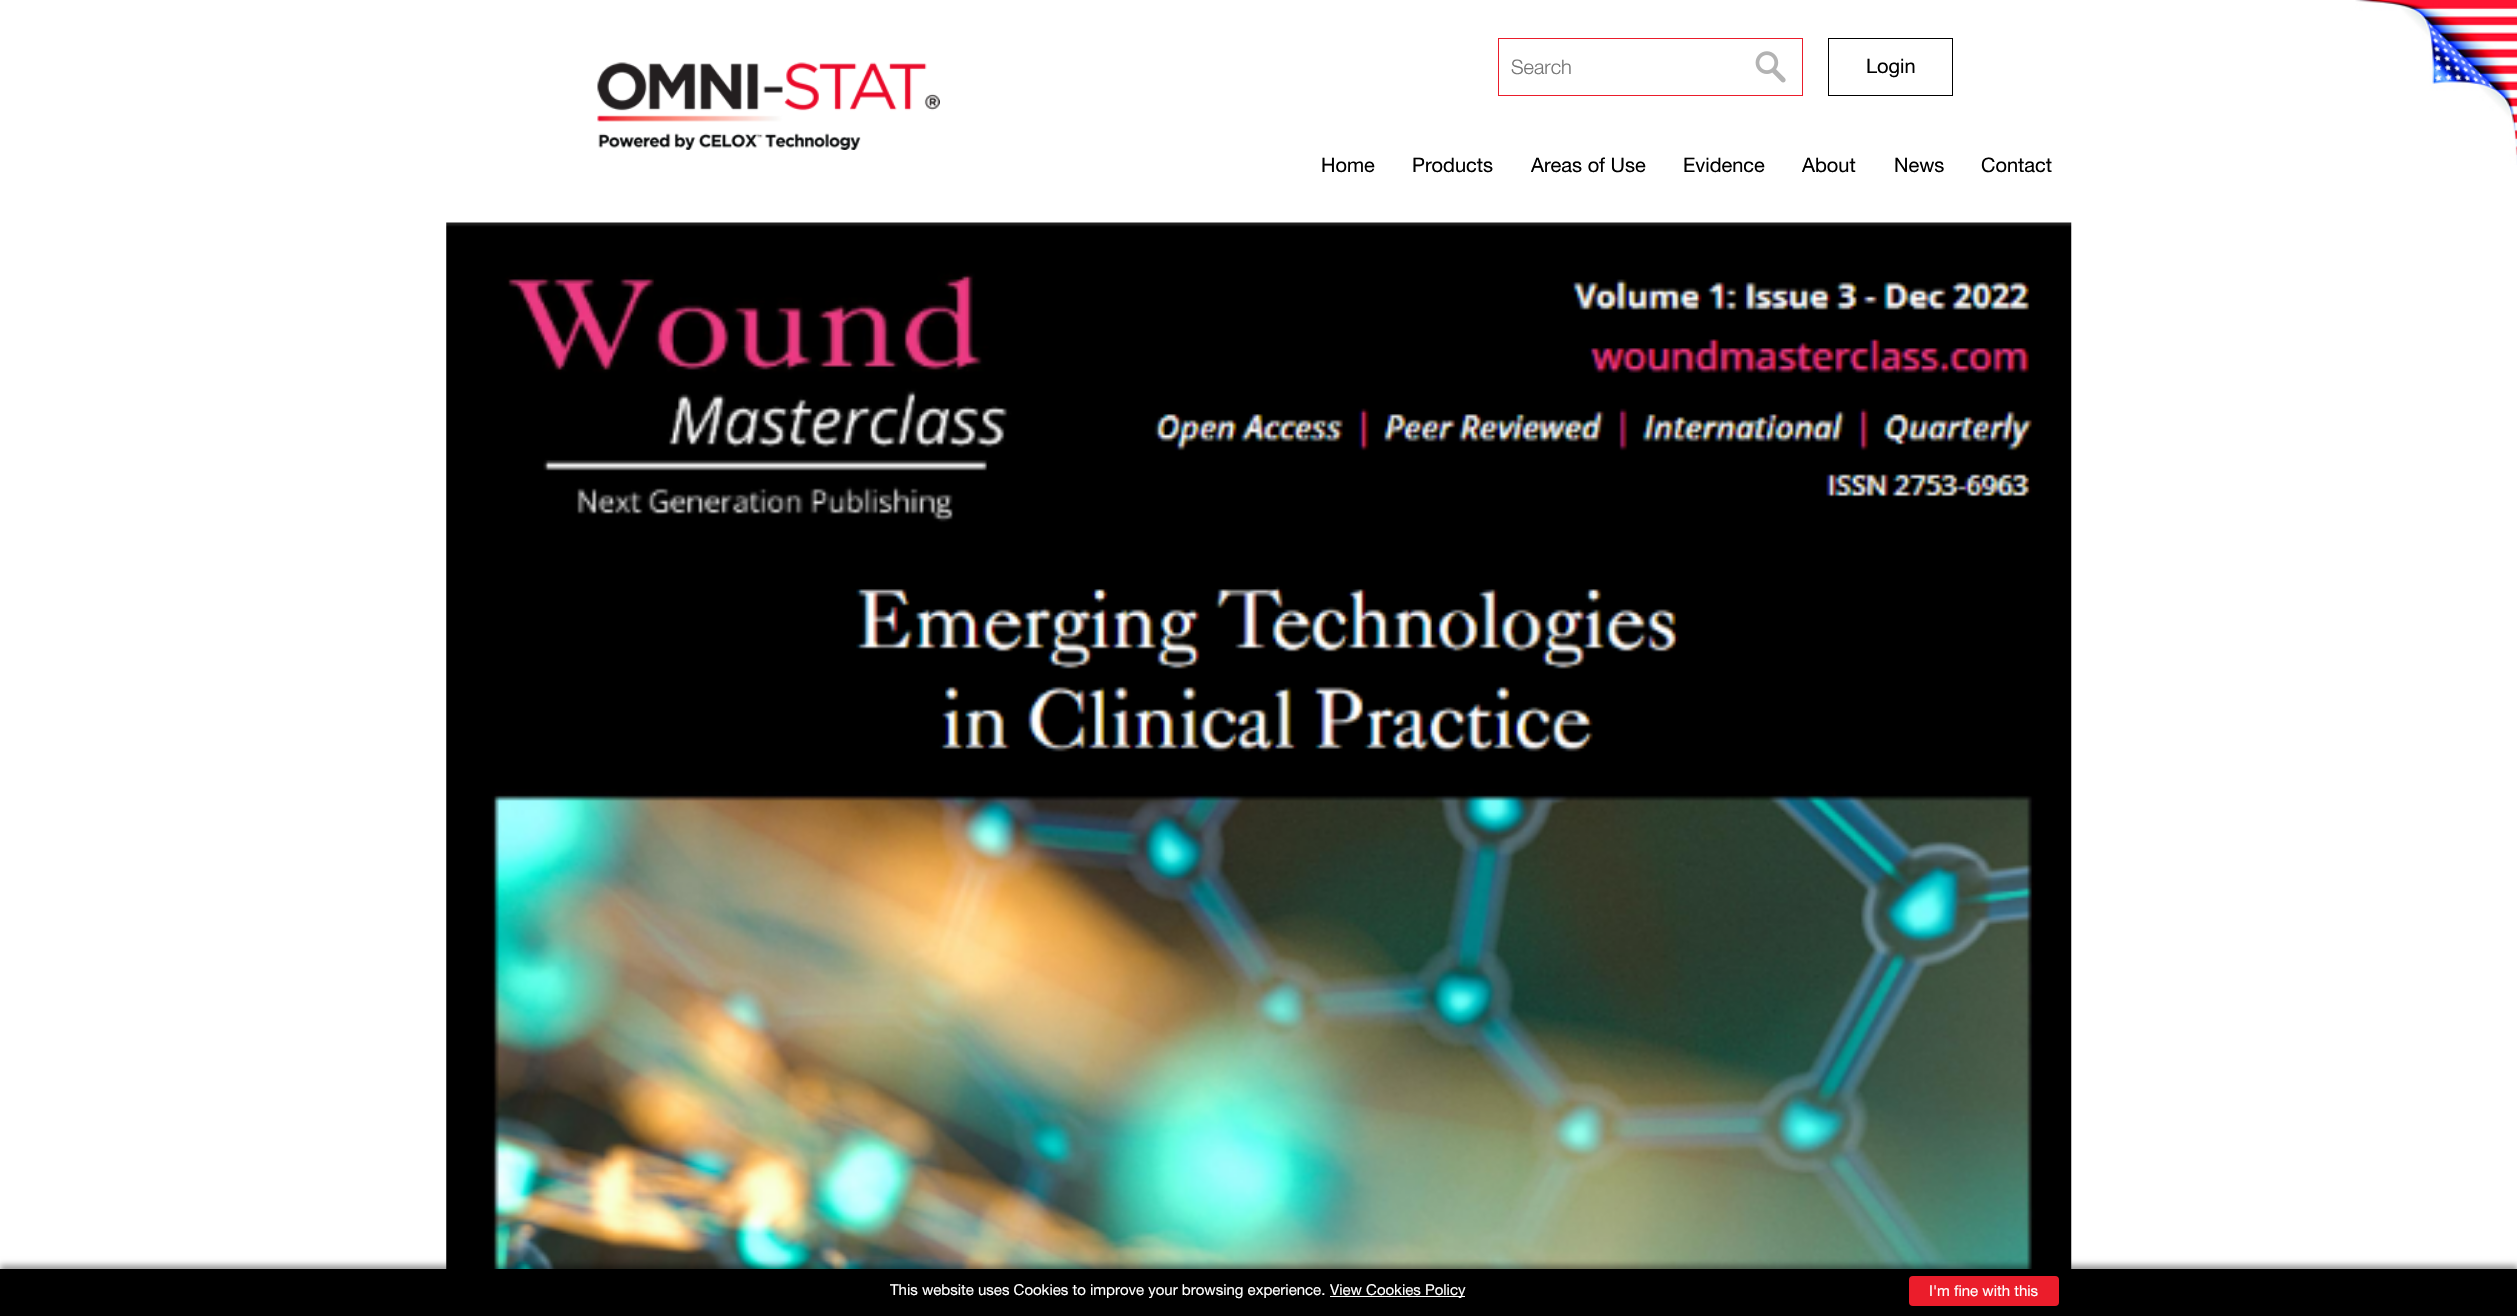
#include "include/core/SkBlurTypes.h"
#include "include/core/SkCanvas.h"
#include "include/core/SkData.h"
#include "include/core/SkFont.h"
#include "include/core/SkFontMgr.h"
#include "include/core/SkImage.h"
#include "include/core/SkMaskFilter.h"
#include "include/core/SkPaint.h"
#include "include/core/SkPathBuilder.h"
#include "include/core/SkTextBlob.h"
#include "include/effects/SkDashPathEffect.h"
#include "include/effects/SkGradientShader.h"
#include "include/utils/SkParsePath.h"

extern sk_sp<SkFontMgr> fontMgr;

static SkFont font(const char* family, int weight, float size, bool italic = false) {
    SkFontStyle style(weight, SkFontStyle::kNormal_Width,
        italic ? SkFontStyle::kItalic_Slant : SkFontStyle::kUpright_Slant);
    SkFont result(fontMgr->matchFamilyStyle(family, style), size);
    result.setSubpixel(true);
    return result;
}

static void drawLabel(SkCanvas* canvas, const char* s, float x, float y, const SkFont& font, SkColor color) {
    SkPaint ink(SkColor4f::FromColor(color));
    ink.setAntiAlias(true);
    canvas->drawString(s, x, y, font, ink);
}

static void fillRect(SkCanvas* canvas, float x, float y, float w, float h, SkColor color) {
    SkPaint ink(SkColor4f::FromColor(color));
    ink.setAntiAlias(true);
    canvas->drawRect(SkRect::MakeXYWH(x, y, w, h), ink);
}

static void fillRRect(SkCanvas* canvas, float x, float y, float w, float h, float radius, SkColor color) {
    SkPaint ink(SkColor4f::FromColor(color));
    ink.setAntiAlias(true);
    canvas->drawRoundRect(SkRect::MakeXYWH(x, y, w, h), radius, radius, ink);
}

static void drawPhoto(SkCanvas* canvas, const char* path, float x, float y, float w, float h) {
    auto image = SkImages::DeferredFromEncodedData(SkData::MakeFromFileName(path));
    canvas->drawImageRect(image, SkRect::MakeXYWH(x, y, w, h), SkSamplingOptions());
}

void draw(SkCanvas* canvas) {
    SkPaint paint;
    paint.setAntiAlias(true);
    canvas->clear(0xFFFFFFFF);
    drawPhoto(canvas, "assets/img1.png", 597, 62, 343, 88);
    paint.setStroke(true);
    paint.setStrokeWidth(1);
    paint.setColor(0xFFEB1D2B);
    canvas->drawRect(SkRect::MakeXYWH(1498.5f, 38.5f, 304, 57), paint);
    SkFont font1 = font("Helvetica Neue", 300, 20);
    drawLabel(canvas, "Search", 1511, 74, font1, 0xFF757575);
    drawPhoto(canvas, "assets/img2.png", 1755, 51, 31, 32);
    paint.setColor(0xFF000000);
    canvas->drawRect(SkRect::MakeXYWH(1828.5f, 38.5f, 124, 57), paint);
    SkFont font2 = font("Helvetica Neue", 400, 20);
    drawLabel(canvas, "Login", 1866, 73, font2, 0xFF000000);
    drawLabel(canvas, "Home", 1321, 172, font2, 0xFF000000);
    drawLabel(canvas, "Products", 1412, 172, font2, 0xFF000000);
    drawLabel(canvas, "Areas of Use", 1531, 172, font2, 0xFF000000);
    drawLabel(canvas, "Evidence", 1683, 172, font2, 0xFF000000);
    drawLabel(canvas, "About", 1802, 172, font2, 0xFF000000);
    drawLabel(canvas, "News", 1894, 172, font2, 0xFF000000);
    drawLabel(canvas, "Contact", 1981, 172, font2, 0xFF000000);
    drawPhoto(canvas, "assets/img3.png", 2355, 0, 162, 165);
    drawPhoto(canvas, "assets/img4.png", 446, 222, 1626, 1047);
    paint.setStroke(false);
    paint.setColor(0x66000000);
    paint.setMaskFilter(SkMaskFilter::MakeBlur(kNormal_SkBlurStyle, 3));
    canvas->drawRect(SkRect::MakeXYWH(0, 1265, 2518, 48), paint);
    paint.setMaskFilter(nullptr);
    fillRect(canvas, 0, 1269, 2517, 47, 0xFF000000);
    SkFont font3 = font("Helvetica Neue", 400, 15);
    drawLabel(canvas, "This website uses Cookies to improve your browsing experience.", 890, 1295, font3, 0xFFFFFFFF);
    fillRect(canvas, 1330, 1296, 135, 1, 0xFFFFFFFF);
    drawLabel(canvas, "View Cookies Policy", 1330, 1295, font3, 0xFFFFFFFF);
    fillRRect(canvas, 1909, 1276, 150, 30, 4, 0xFFEB1D2B);
    drawLabel(canvas, "I'm fine with this", 1929, 1296, font3, 0xFFFFFFFF);
}
